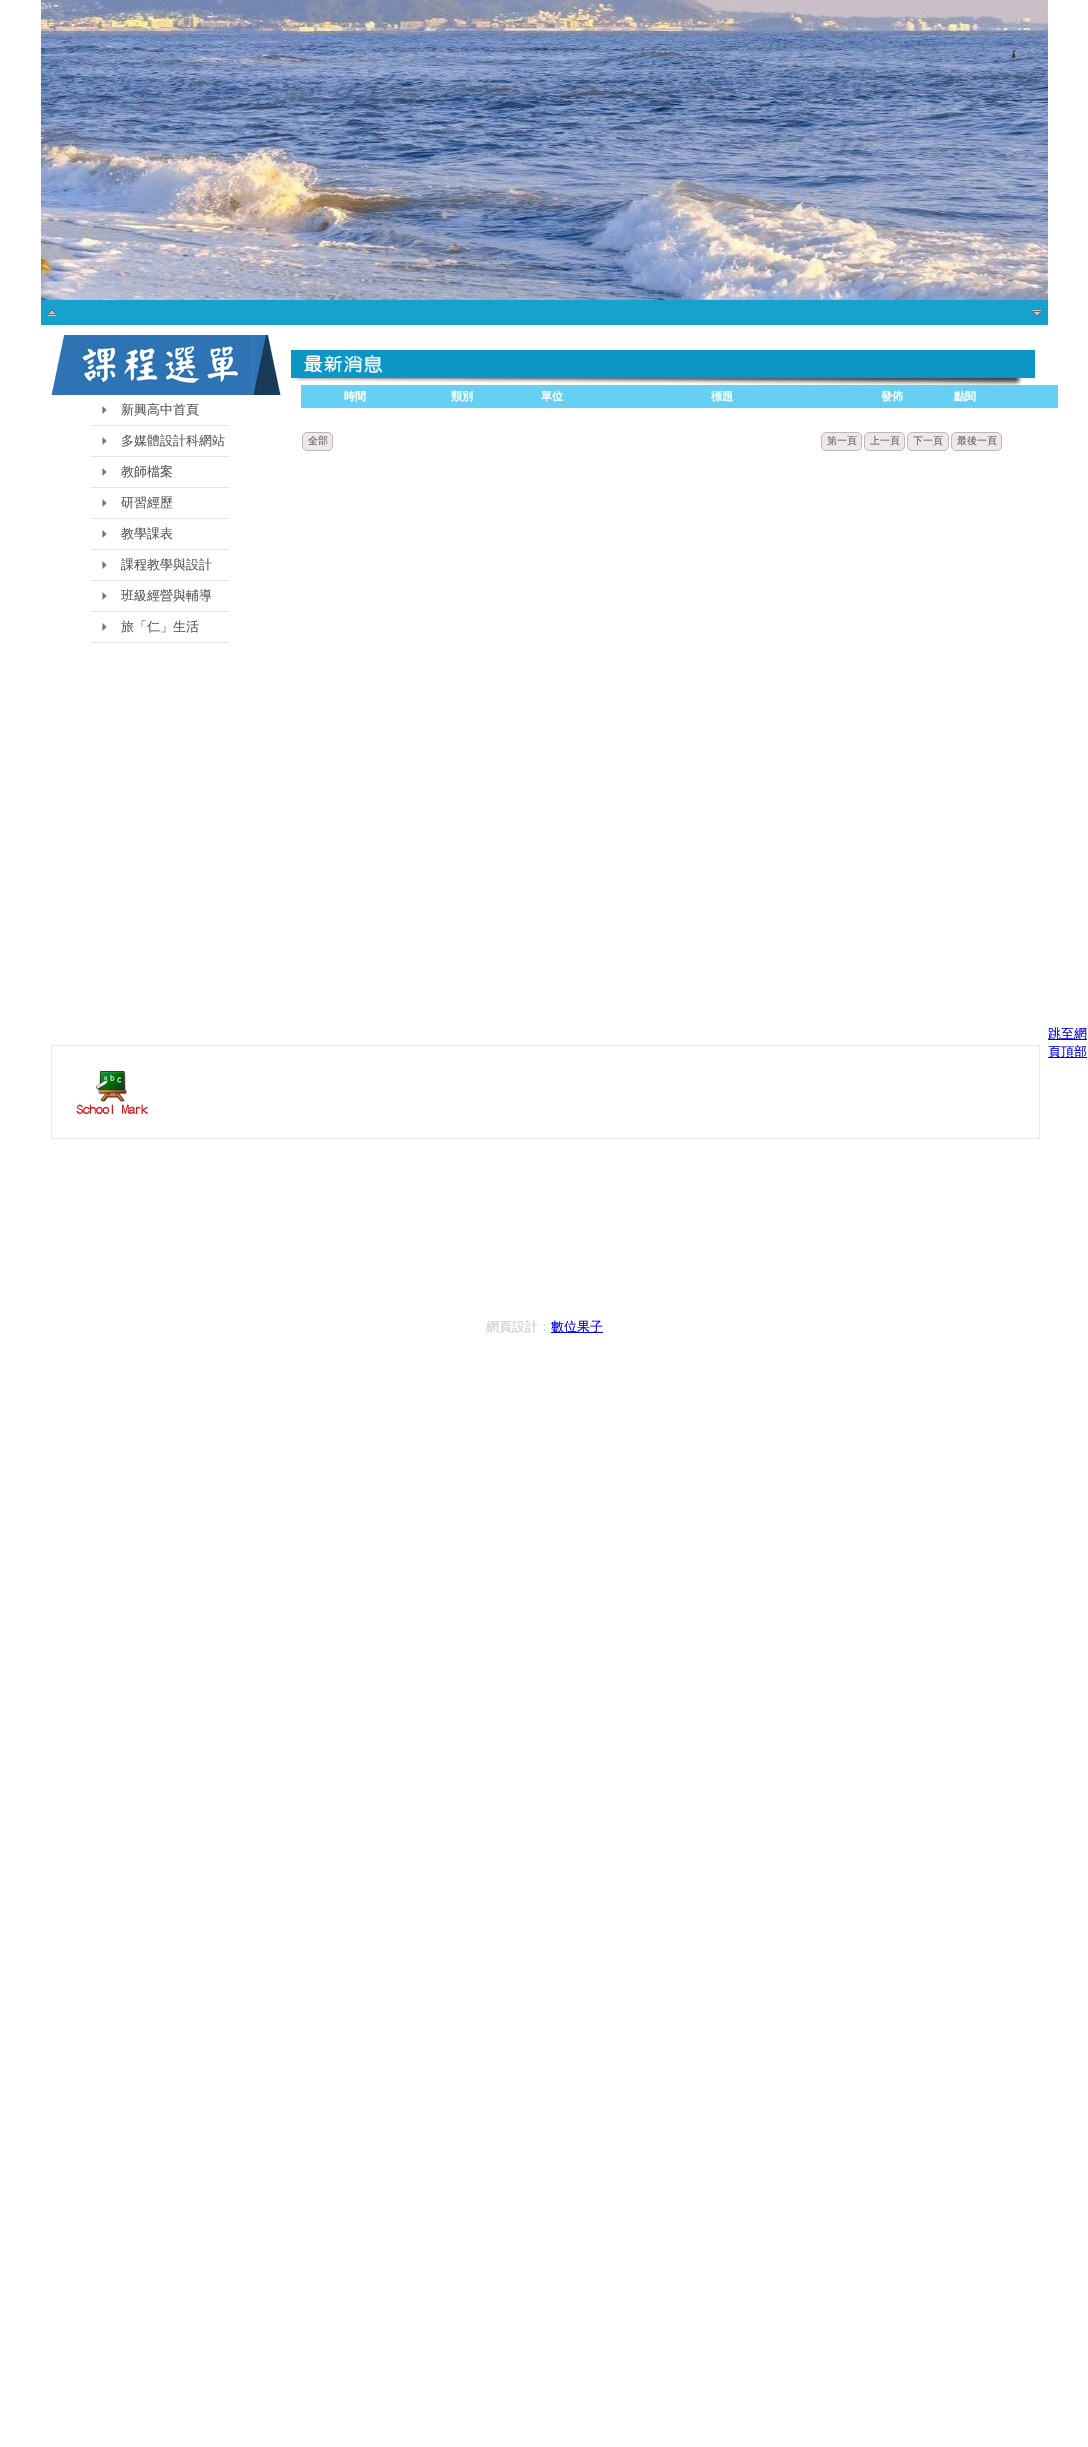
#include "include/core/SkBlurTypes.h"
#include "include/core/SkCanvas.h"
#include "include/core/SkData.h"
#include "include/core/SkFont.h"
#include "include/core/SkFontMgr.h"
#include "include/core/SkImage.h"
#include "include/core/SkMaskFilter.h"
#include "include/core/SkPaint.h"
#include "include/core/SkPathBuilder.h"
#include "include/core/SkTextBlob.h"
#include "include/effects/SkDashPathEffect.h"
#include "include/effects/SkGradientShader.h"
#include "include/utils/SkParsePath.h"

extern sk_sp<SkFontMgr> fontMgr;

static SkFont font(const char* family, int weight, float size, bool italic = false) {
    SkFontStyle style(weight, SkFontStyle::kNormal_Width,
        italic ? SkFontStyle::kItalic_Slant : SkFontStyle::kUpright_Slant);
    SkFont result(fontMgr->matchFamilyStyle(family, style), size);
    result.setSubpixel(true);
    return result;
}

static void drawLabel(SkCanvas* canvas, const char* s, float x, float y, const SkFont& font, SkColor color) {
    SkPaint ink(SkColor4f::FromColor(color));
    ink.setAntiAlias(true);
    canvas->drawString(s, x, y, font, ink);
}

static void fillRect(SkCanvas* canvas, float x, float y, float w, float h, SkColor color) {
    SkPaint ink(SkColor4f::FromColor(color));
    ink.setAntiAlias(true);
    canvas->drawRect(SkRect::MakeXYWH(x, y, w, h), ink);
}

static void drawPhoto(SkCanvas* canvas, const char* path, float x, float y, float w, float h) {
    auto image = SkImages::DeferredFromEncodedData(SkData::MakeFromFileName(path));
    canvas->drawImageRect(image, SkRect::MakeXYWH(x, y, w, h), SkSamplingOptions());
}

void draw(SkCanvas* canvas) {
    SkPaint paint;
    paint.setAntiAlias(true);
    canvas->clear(0xFFFFFFFF);
    drawPhoto(canvas, "assets/img1.png", 41, 0, 1007, 300);
    fillRect(canvas, 41, 300, 1007, 25, 0xFF16A2CC);
    drawPhoto(canvas, "assets/img2.png", 48, 310, 8, 6);
    drawPhoto(canvas, "assets/img3.png", 1033, 310, 8, 6);
    drawPhoto(canvas, "assets/img4.png", 51, 335, 230, 60);
    fillRect(canvas, 91, 425, 138, 1, 0xFFE6E6E6);
    drawPhoto(canvas, "assets/img5.png", 102, 406, 5, 8);
    SkFont font1 = font("WenQuanYi Zen Hei", 500, 13);
    drawLabel(canvas, "新興高中首頁", 121, 414, font1, 0xFF575757);
    fillRect(canvas, 91, 456, 138, 1, 0xFFE6E6E6);
    drawPhoto(canvas, "assets/img5.png", 102, 437, 5, 8);
    drawLabel(canvas, "多媒體設計科網站", 121, 445, font1, 0xFF575757);
    fillRect(canvas, 91, 487, 138, 1, 0xFFE6E6E6);
    drawPhoto(canvas, "assets/img5.png", 102, 468, 5, 8);
    drawLabel(canvas, "教師檔案", 121, 476, font1, 0xFF575757);
    fillRect(canvas, 91, 518, 138, 1, 0xFFE6E6E6);
    drawPhoto(canvas, "assets/img5.png", 102, 499, 5, 8);
    drawLabel(canvas, "研習經歷", 121, 507, font1, 0xFF575757);
    fillRect(canvas, 91, 549, 138, 1, 0xFFE6E6E6);
    drawPhoto(canvas, "assets/img5.png", 102, 530, 5, 8);
    drawLabel(canvas, "教學課表", 121, 538, font1, 0xFF575757);
    fillRect(canvas, 91, 580, 138, 1, 0xFFE6E6E6);
    drawPhoto(canvas, "assets/img5.png", 102, 561, 5, 8);
    drawLabel(canvas, "課程教學與設計", 121, 569, font1, 0xFF575757);
    fillRect(canvas, 91, 611, 138, 1, 0xFFE6E6E6);
    drawPhoto(canvas, "assets/img5.png", 102, 592, 5, 8);
    drawLabel(canvas, "班級經營與輔導", 121, 600, font1, 0xFF575757);
    fillRect(canvas, 91, 642, 138, 1, 0xFFE6E6E6);
    drawPhoto(canvas, "assets/img5.png", 102, 623, 5, 8);
    drawLabel(canvas, "旅「仁」生活", 121, 631, font1, 0xFF575757);
    drawPhoto(canvas, "assets/img6.png", 291, 350, 744, 35);
    fillRect(canvas, 301, 385, 757, 23, 0xFF66D0F4);
    SkFont font2 = font("WenQuanYi Zen Hei", 700, 11);
    drawLabel(canvas, "時間", 344, 400, font2, 0xFFFFFFFF);
    drawLabel(canvas, "類別", 451, 400, font2, 0xFFFFFFFF);
    drawLabel(canvas, "單位", 541, 400, font2, 0xFFFFFFFF);
    drawLabel(canvas, "標題", 711, 400, font2, 0xFFFFFFFF);
    drawLabel(canvas, "發佈", 881, 400, font2, 0xFFFFFFFF);
    drawLabel(canvas, "點閱", 954, 400, font2, 0xFFFFFFFF);
    paint.setColor(0xFFEEE8E8);
    canvas->drawRoundRect(SkRect::MakeXYWH(302.5f, 432.5f, 30, 18), 4.5f, 4.5f, paint);
    paint.setStroke(true);
    paint.setStrokeWidth(1);
    paint.setColor(0xFFB8B8B8);
    canvas->drawRoundRect(SkRect::MakeXYWH(302.5f, 432.5f, 30, 18), 4.5f, 4.5f, paint);
    SkFont font3 = font("WenQuanYi Zen Hei", 500, 10);
    drawLabel(canvas, "全部", 308, 444, font3, 0xFF656565);
    paint.setStroke(false);
    paint.setColor(0xFFEEE8E8);
    canvas->drawRoundRect(SkRect::MakeXYWH(821.5f, 432.5f, 40, 18), 4.5f, 4.5f, paint);
    paint.setStroke(true);
    paint.setColor(0xFFB8B8B8);
    canvas->drawRoundRect(SkRect::MakeXYWH(821.5f, 432.5f, 40, 18), 4.5f, 4.5f, paint);
    drawLabel(canvas, "第一頁", 827, 444, font3, 0xFF656565);
    paint.setStroke(false);
    paint.setColor(0xFFEEE8E8);
    canvas->drawRoundRect(SkRect::MakeXYWH(864.5f, 432.5f, 40, 18), 4.5f, 4.5f, paint);
    paint.setStroke(true);
    paint.setColor(0xFFB8B8B8);
    canvas->drawRoundRect(SkRect::MakeXYWH(864.5f, 432.5f, 40, 18), 4.5f, 4.5f, paint);
    drawLabel(canvas, "上一頁", 870, 444, font3, 0xFF656565);
    paint.setStroke(false);
    paint.setColor(0xFFEEE8E8);
    canvas->drawRoundRect(SkRect::MakeXYWH(907.5f, 432.5f, 41, 18), 4.5f, 4.5f, paint);
    paint.setStroke(true);
    paint.setColor(0xFFB8B8B8);
    canvas->drawRoundRect(SkRect::MakeXYWH(907.5f, 432.5f, 41, 18), 4.5f, 4.5f, paint);
    drawLabel(canvas, "下一頁", 913, 444, font3, 0xFF656565);
    paint.setStroke(false);
    paint.setColor(0xFFEEE8E8);
    canvas->drawRoundRect(SkRect::MakeXYWH(951.5f, 432.5f, 50, 18), 4.5f, 4.5f, paint);
    paint.setStroke(true);
    paint.setColor(0xFFB8B8B8);
    canvas->drawRoundRect(SkRect::MakeXYWH(951.5f, 432.5f, 50, 18), 4.5f, 4.5f, paint);
    drawLabel(canvas, "最後一頁", 957, 444, font3, 0xFF656565);
    paint.setColor(0xFFE9E9E9);
    canvas->drawRect(SkRect::MakeXYWH(51.5f, 1045.5f, 988, 93), paint);
    drawPhoto(canvas, "assets/img7.png", 76, 1071, 72, 50);
    fillRect(canvas, 1048, 1039, 39, 1, 0xFF0000EE);
    drawLabel(canvas, "跳至網", 1048, 1038, font1, 0xFF0000EE);
    fillRect(canvas, 1048, 1057, 39, 1, 0xFF0000EE);
    drawLabel(canvas, "頁頂部", 1048, 1056, font1, 0xFF0000EE);
    drawLabel(canvas, "網頁設計：", 486, 1331, font1, 0xFFCCCCCC);
    fillRect(canvas, 551, 1332, 52, 1, 0xFF0000EE);
    drawLabel(canvas, "數位果子", 551, 1331, font1, 0xFF0000EE);
}
